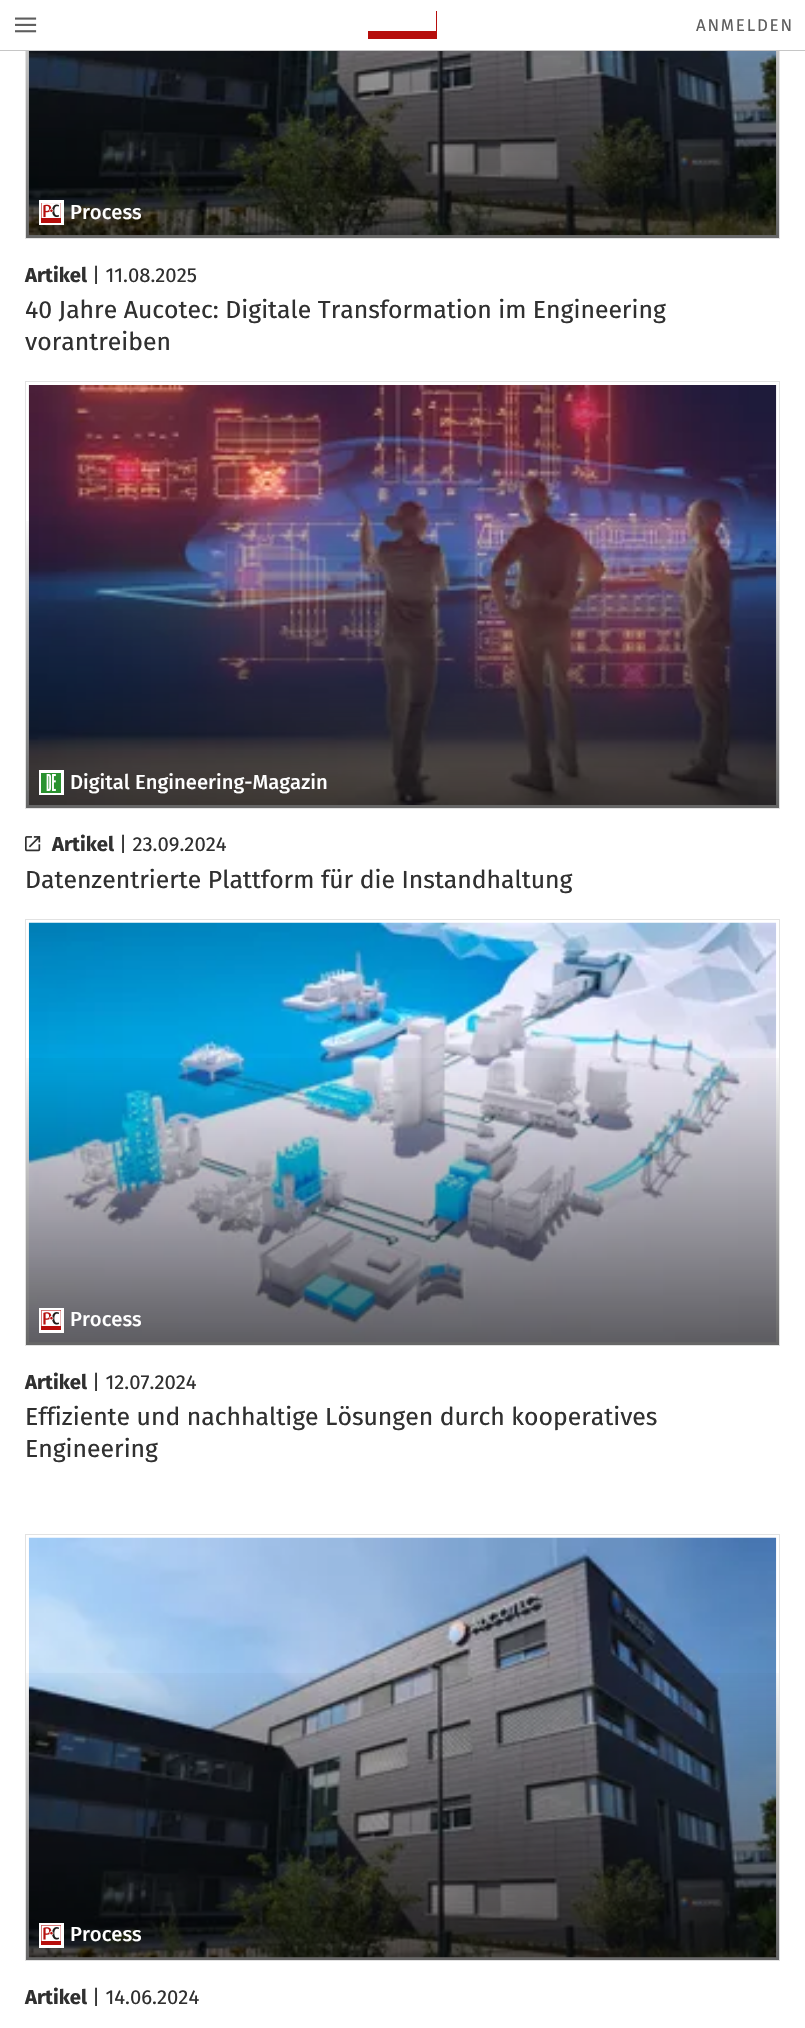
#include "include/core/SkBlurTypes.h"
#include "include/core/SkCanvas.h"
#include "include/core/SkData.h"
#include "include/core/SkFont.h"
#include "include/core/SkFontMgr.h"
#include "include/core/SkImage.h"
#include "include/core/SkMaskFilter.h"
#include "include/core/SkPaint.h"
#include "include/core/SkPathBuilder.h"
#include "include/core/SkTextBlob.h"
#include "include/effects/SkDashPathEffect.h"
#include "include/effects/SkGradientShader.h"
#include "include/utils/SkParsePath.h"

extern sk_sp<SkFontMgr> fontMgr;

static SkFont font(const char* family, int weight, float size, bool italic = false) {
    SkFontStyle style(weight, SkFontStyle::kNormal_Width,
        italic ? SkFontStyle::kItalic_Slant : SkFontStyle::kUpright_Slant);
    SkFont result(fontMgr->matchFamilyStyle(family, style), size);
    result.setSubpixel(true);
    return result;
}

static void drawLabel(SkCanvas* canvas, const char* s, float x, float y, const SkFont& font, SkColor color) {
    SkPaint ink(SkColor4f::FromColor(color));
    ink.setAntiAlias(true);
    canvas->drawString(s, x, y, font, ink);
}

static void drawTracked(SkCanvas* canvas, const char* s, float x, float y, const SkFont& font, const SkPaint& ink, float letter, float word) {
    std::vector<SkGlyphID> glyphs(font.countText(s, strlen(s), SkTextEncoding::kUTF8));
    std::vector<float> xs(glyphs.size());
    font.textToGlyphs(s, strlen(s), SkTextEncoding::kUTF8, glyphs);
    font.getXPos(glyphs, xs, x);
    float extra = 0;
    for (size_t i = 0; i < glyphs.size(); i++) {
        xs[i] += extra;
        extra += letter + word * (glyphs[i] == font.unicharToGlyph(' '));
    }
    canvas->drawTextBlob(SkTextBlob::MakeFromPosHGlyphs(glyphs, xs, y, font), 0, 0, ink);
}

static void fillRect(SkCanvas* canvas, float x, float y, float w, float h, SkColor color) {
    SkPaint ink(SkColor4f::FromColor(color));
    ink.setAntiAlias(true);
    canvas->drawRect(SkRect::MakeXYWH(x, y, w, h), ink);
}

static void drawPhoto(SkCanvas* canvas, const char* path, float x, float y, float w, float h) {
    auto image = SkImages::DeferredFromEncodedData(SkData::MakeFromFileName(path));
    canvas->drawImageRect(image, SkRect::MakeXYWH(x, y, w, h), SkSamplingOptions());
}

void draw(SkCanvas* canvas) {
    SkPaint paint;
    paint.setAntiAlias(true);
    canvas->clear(0xFFFFFFFF);
    paint.setStroke(true);
    paint.setStrokeWidth(1);
    paint.setColor(0xFFE2E2E2);
    canvas->drawRect(SkRect::MakeXYWH(25.5f, -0.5f, 754, 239), paint);
    fillRect(canvas, 25, 0, 755, 50, 0xFFFFFFFF);
    fillRect(canvas, 0, 50, 805, 1, 0xFFC6C6C6);
    drawPhoto(canvas, "assets/img1.png", 15, 17, 22, 16);
    fillRect(canvas, 436, 11, 1, 20, 0xFFB60E0C);
    fillRect(canvas, 368, 31, 69, 8, 0xFFB60E0C);
    SkFont font1 = font("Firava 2", 400, 17);
    paint.setStroke(false);
    paint.setColor(0xFF5E5E5E);
    drawTracked(canvas, "ANMELDEN", 696, 31, font1, paint, 1.75f, 0);
    drawPhoto(canvas, "assets/img2.png", 28, 51, 749, 184);
    {
        const SkColor colors[] = {0x99000000, 0x00000000};
        const float stops[] = {0, 0.7f};
        const SkPoint ends[] = {{403, 238}, {403, -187}};
        paint.setShader(SkGradientShader::MakeLinear(ends, colors, stops, 2, SkTileMode::kClamp));
        paint.setAlpha(255);
    }
    canvas->drawRect(SkRect::MakeXYWH(26, 51, 753, 187), paint);
    fillRect(canvas, 39, 200, 25, 25, 0xFFFFFFFF);
    drawPhoto(canvas, "assets/img3.png", 41, 203, 20, 20);
    SkFont font2 = font("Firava", 500, 20.25f);
    drawLabel(canvas, "Process", 70, 219, font2, 0xFFFFFFFF);
    SkFont font3 = font("Firava", 700, 20.25f);
    drawLabel(canvas, "Artikel", 25, 282, font3, 0xFF303030);
    SkFont font4 = font("Firava", 400, 20.25f);
    drawLabel(canvas, "| 11.08.2025", 92, 282, font4, 0xFF303030);
    SkFont font5 = font("Firava", 400, 24.75f);
    drawLabel(canvas, "40 Jahre Aucotec: Digitale Transformation im Engineering", 25, 318, font5, 0xFF303030);
    drawLabel(canvas, "vorantreiben", 25, 350, font5, 0xFF303030);
    paint.setStroke(true);
    paint.setShader(nullptr);
    paint.setColor(0xFFE2E2E2);
    canvas->drawRect(SkRect::MakeXYWH(25.5f, 381.5f, 754, 427), paint);
    drawPhoto(canvas, "assets/img4.png", 28, 385, 749, 420);
    paint.setStroke(false);
    {
        const SkColor colors[] = {0x99000000, 0x00000000};
        const float stops[] = {0, 0.7f};
        const SkPoint ends[] = {{403, 808}, {403, 383}};
        paint.setShader(SkGradientShader::MakeLinear(ends, colors, stops, 2, SkTileMode::kClamp));
        paint.setAlpha(255);
    }
    canvas->drawRect(SkRect::MakeXYWH(26, 521, 753, 287), paint);
    fillRect(canvas, 39, 770, 25, 25, 0xFFFFFFFF);
    drawPhoto(canvas, "assets/img5.png", 41, 773, 20, 20);
    drawLabel(canvas, "Digital Engineering-Magazin", 70, 789, font2, 0xFFFFFFFF);
    drawPhoto(canvas, "assets/img6.png", 25, 836, 16, 16);
    drawLabel(canvas, "Artikel", 52, 851, font3, 0xFF303030);
    drawLabel(canvas, "| 23.09.2024", 119, 851, font4, 0xFF303030);
    drawLabel(canvas, "Datenzentrierte Plattform für die Instandhaltung", 25, 888, font5, 0xFF303030);
    paint.setStroke(true);
    paint.setShader(nullptr);
    paint.setColor(0xFFE2E2E2);
    canvas->drawRect(SkRect::MakeXYWH(25.5f, 919.5f, 754, 426), paint);
    drawPhoto(canvas, "assets/img7.png", 28, 922, 749, 421);
    paint.setStroke(false);
    {
        const SkColor colors[] = {0x99000000, 0x00000000};
        const float stops[] = {0, 0.7f};
        const SkPoint ends[] = {{403, 1345}, {403, 920}};
        paint.setShader(SkGradientShader::MakeLinear(ends, colors, stops, 2, SkTileMode::kClamp));
        paint.setAlpha(255);
    }
    canvas->drawRect(SkRect::MakeXYWH(26, 1058, 753, 287), paint);
    fillRect(canvas, 39, 1308, 25, 25, 0xFFFFFFFF);
    drawPhoto(canvas, "assets/img8.png", 41, 1310, 20, 20);
    drawLabel(canvas, "Process", 70, 1326, font2, 0xFFFFFFFF);
    drawLabel(canvas, "Artikel", 25, 1389, font3, 0xFF303030);
    drawLabel(canvas, "| 12.07.2024", 92, 1389, font4, 0xFF303030);
    drawLabel(canvas, "Effiziente und nachhaltige Lösungen durch kooperatives", 25, 1425, font5, 0xFF303030);
    drawLabel(canvas, "Engineering", 25, 1457, font5, 0xFF303030);
    paint.setStroke(true);
    paint.setShader(nullptr);
    paint.setColor(0xFFE2E2E2);
    canvas->drawRect(SkRect::MakeXYWH(25.5f, 1534.5f, 754, 426), paint);
    drawPhoto(canvas, "assets/img9.png", 28, 1537, 749, 421);
    paint.setStroke(false);
    {
        const SkColor colors[] = {0x99000000, 0x00000000};
        const float stops[] = {0, 0.7f};
        const SkPoint ends[] = {{403, 1960}, {403, 1535}};
        paint.setShader(SkGradientShader::MakeLinear(ends, colors, stops, 2, SkTileMode::kClamp));
        paint.setAlpha(255);
    }
    canvas->drawRect(SkRect::MakeXYWH(26, 1673, 753, 287), paint);
    fillRect(canvas, 39, 1923, 25, 25, 0xFFFFFFFF);
    drawPhoto(canvas, "assets/img8.png", 41, 1925, 20, 20);
    drawLabel(canvas, "Process", 70, 1941, font2, 0xFFFFFFFF);
    drawLabel(canvas, "Artikel", 25, 2004, font3, 0xFF303030);
    drawLabel(canvas, "| 14.06.2024", 92, 2004, font4, 0xFF303030);
}
